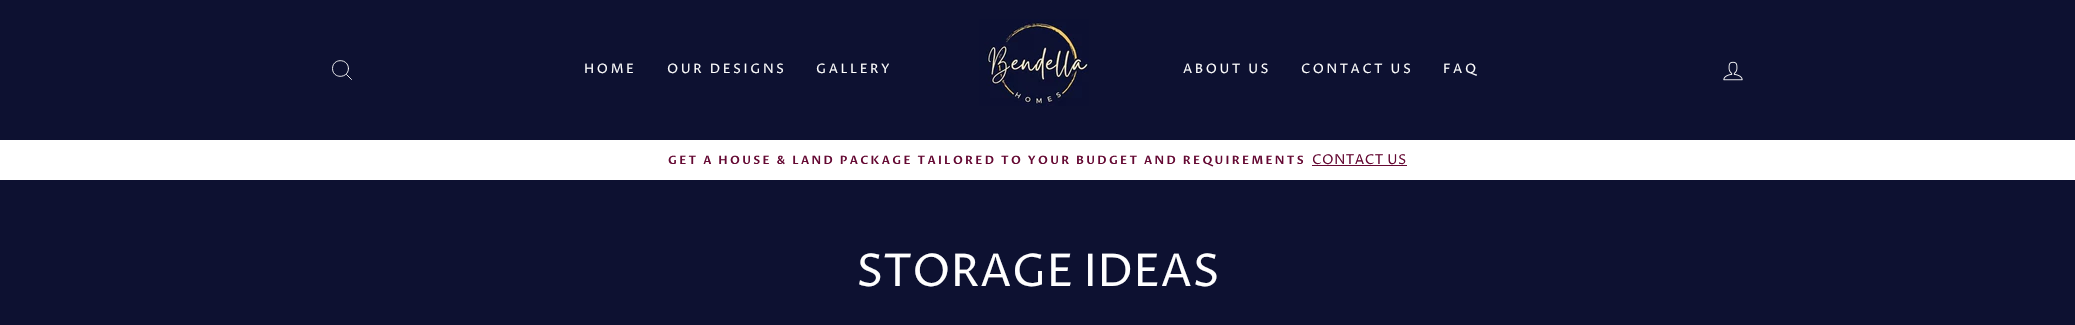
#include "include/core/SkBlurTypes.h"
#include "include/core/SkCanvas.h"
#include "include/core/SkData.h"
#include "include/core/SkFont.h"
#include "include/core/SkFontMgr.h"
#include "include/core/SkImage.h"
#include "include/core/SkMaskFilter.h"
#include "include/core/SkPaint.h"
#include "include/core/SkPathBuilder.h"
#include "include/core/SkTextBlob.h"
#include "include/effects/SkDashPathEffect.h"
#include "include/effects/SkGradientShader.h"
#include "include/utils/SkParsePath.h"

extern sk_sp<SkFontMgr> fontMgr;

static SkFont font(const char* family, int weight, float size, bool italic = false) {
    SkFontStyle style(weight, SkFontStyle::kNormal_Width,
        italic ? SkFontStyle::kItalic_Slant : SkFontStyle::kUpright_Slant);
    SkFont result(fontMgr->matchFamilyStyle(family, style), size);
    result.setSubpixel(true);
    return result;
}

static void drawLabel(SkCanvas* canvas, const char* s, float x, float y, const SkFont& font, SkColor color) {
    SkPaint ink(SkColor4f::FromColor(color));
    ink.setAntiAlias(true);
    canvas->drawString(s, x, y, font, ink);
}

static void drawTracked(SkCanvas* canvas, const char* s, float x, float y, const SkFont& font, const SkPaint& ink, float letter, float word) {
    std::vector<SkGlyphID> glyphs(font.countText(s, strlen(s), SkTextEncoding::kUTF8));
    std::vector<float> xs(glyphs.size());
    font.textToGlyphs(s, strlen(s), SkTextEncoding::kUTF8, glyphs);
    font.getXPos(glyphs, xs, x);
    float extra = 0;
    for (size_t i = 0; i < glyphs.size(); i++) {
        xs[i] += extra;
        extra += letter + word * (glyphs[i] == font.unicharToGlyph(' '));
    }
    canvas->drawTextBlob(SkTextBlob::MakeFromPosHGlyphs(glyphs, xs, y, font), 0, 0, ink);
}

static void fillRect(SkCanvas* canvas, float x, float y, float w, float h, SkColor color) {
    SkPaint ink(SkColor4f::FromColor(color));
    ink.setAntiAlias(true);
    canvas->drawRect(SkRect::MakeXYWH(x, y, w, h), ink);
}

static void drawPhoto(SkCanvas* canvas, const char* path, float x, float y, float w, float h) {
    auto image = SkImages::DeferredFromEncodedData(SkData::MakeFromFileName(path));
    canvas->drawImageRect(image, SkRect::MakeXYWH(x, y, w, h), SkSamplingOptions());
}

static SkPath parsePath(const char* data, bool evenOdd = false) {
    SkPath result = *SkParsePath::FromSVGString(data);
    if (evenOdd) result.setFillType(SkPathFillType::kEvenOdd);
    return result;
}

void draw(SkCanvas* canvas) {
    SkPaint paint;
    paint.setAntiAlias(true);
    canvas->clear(0xFF0D1131);
    paint.setStroke(true);
    paint.setStrokeWidth(0.9f);
    paint.setStrokeCap(SkPaint::kRound_Cap);
    paint.setStrokeJoin(SkPaint::kRound_Join);
    paint.setColor(0xFFFFFFFF);
    canvas->drawPath(parsePath("M348.5 68.5C348.5 79 332.5 79 332.5 68.5C332.5 58 348.5 58 348.5 68.5ZM351.5 79.5L346.5 74.5"), paint);
    SkFont font1 = font("Proza Libre", 400, 13);
    paint.setStroke(false);
    drawTracked(canvas, "HOME", 584, 73, font1, paint, 2.6f, 0);
    drawTracked(canvas, "OUR DESIGNS", 667, 73, font1, paint, 2.6f, 0);
    drawTracked(canvas, "GALLERY", 816, 73, font1, paint, 2.6f, 0);
    drawPhoto(canvas, "assets/img1.png", 979, 19, 110, 87);
    drawTracked(canvas, "ABOUT US", 1183, 73, font1, paint, 2.6f, 0);
    drawTracked(canvas, "CONTACT US", 1301, 73, font1, paint, 2.6f, 0);
    drawTracked(canvas, "FAQ", 1443, 73, font1, paint, 2.6f, 0);
    drawPhoto(canvas, "assets/img2.png", 1723, 61, 20, 20);
    fillRect(canvas, 0, 140, 2075, 40, 0xFFFFFFFF);
    SkFont font2 = font("Proza Libre", 600, 11.55f);
    paint.setColor(0xFF650933);
    drawTracked(canvas, "GET A HOUSE & LAND PACKAGE TAILORED TO YOUR BUDGET AND REQUIREMENTS", 668, 164, font2, paint, 2.3f, 0);
    SkFont font3 = font("Proza Libre", 400, 13.5f);
    drawTracked(canvas, "CONTACT US", 1312, 164, font3, paint, 0.5f, 0);
    fillRect(canvas, 1312, 165, 95, 1, 0xFF650933);
    SkFont font4 = font("Proza Libre", 400, 45);
    drawLabel(canvas, "STORAGE IDEAS", 856, 286, font4, 0xFFFFFFFF);
}
